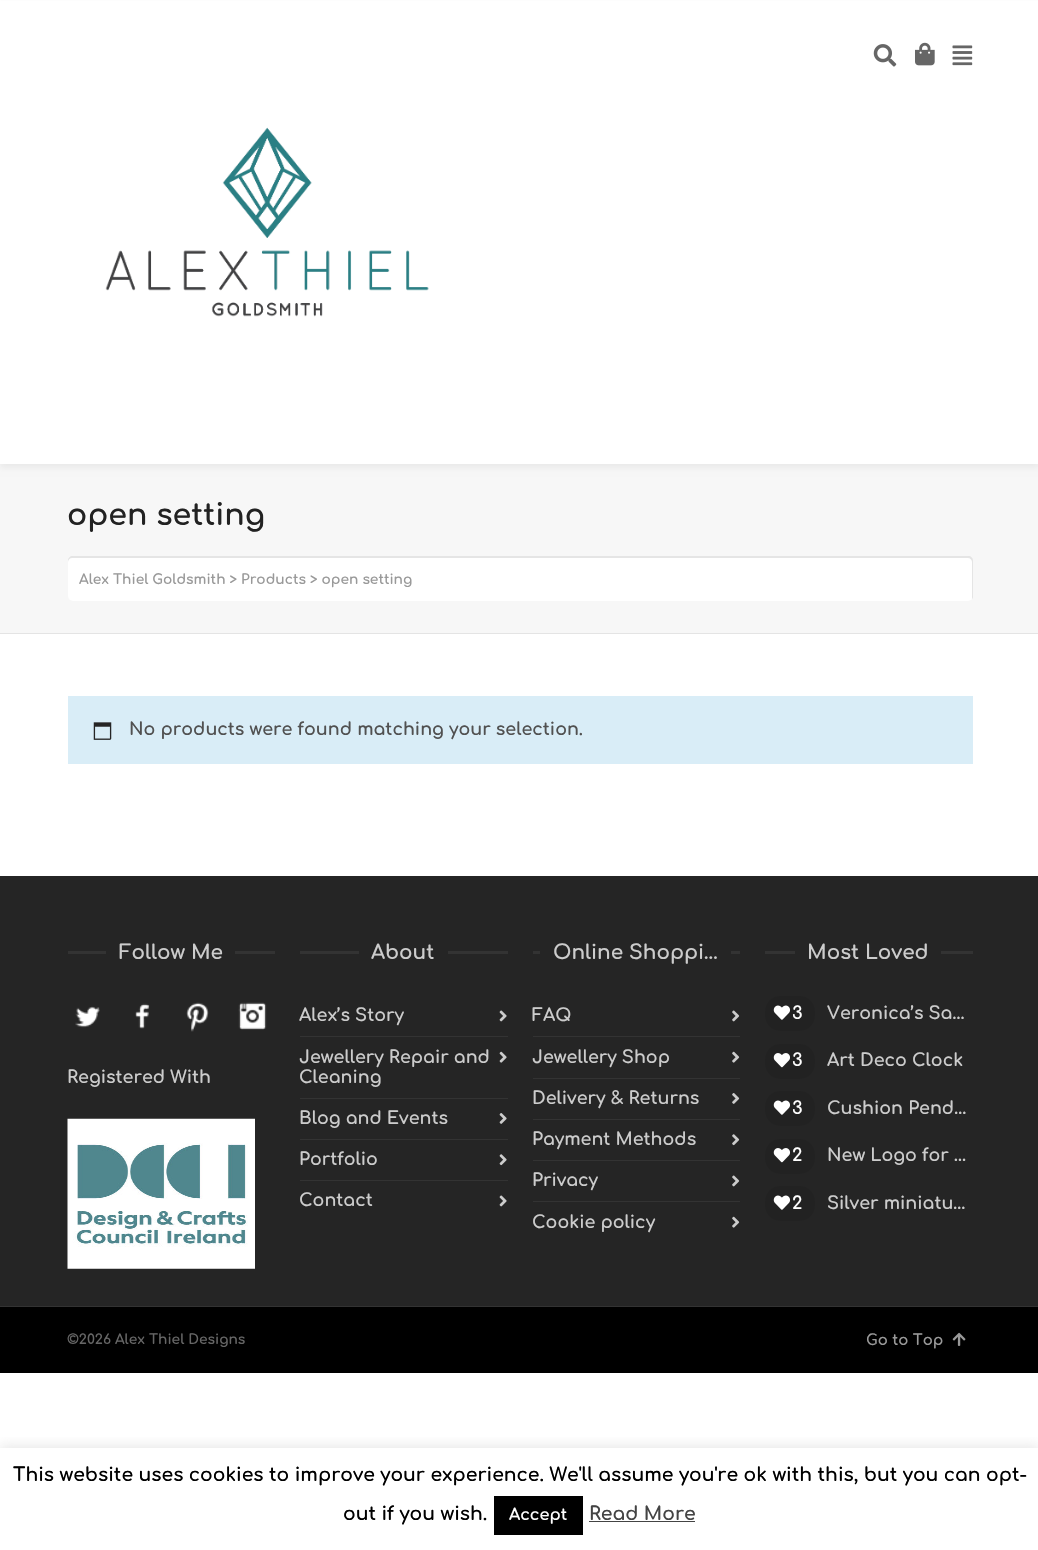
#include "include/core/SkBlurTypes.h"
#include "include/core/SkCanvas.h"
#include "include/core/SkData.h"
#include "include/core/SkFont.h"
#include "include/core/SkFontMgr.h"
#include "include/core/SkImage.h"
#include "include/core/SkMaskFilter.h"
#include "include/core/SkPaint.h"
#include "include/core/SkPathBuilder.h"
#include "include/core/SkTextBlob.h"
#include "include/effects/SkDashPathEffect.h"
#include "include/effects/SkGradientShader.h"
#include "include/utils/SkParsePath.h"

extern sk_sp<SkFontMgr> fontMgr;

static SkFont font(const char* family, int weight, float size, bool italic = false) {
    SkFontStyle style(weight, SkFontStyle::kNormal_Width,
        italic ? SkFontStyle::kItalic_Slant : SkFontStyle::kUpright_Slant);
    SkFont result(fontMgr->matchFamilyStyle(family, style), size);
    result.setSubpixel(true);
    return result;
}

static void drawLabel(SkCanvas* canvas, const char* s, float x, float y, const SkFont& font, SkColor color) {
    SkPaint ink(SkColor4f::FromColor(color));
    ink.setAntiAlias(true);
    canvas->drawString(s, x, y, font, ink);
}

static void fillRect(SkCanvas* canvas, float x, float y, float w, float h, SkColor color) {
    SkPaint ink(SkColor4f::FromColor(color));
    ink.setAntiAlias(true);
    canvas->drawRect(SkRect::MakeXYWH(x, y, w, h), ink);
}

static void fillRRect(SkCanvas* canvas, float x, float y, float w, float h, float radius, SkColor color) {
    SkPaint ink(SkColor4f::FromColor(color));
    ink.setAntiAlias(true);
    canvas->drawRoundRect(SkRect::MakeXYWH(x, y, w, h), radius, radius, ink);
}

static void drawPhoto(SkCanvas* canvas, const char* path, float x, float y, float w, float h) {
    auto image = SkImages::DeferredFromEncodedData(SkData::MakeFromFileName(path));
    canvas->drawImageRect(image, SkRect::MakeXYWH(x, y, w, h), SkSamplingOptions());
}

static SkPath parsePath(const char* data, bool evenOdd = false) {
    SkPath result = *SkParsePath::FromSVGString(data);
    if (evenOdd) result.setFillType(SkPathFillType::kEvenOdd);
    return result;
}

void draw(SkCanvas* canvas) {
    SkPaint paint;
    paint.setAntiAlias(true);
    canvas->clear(0xFFFFFFFF);
    fillRect(canvas, 0, 464, 1038, 169, 0xFFF7F7F7);
    paint.setColor(0x0D000000);
    paint.setMaskFilter(SkMaskFilter::MakeBlur(kNormal_SkBlurStyle, 3));
    canvas->drawRect(SkRect::MakeXYWH(0, 4, 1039, 464), paint);
    paint.setMaskFilter(nullptr);
    fillRect(canvas, 0, 1, 1038, 463, 0xFFFFFFFF);
    drawPhoto(canvas, "assets/img1.png", 873, 44, 24, 23);
    drawPhoto(canvas, "assets/img2.png", 915, 42, 20, 24);
    drawPhoto(canvas, "assets/img3.png", 952, 45, 21, 21);
    drawPhoto(canvas, "assets/img4.png", 105, 127, 324, 190);
    fillRect(canvas, 0, 633, 1038, 1, 0xFFE4E4E4);
    SkFont font1 = font("Comfortaa", 700, 30);
    drawLabel(canvas, "open setting", 67, 525, font1, 0xFF222222);
    fillRRect(canvas, 68, 556, 905, 45, 5, 0xFFFFFFFF);
    paint.setColor(0x1A000000);
    canvas->drawPath(parsePath("M72 558H968C970 558 972 560 972 562V599C973 598 973 597 973 596V561C973 558 971 556 968 556H73C70 556 68 558 68 561V562C68 560 70 558 72 558Z"), paint);
    SkFont font2 = font("Comfortaa", 700, 13.75f);
    drawLabel(canvas, "Alex Thiel Goldsmith > Products > open setting", 79, 584, font2, 0xFF999999);
    fillRect(canvas, 68, 696, 905, 68, 0xFFD9EDF7);
    drawPhoto(canvas, "assets/img5.png", 93, 722, 19, 18);
    SkFont font3 = font("Comfortaa", 700, 17.5f);
    drawLabel(canvas, "No products were found matching your selection.", 129, 735, font3, 0xFF515151);
    fillRect(canvas, 0, 876, 1038, 430, 0xFF252525);
    fillRect(canvas, 68, 951, 207, 3, 0xFF333333);
    fillRect(canvas, 106, 951, 129, 3, 0xFF252525);
    SkFont font4 = font("Comfortaa", 700, 20);
    drawLabel(canvas, "Follow Me", 119, 959, font4, 0xFFCCCCCC);
    drawPhoto(canvas, "assets/img6.png", 75, 1006, 25, 22);
    drawPhoto(canvas, "assets/img7.png", 135, 1003, 15, 26);
    drawPhoto(canvas, "assets/img8.png", 186, 1002, 23, 30);
    drawPhoto(canvas, "assets/img9.png", 238, 1002, 29, 28);
    drawLabel(canvas, "Registered With", 67, 1083, font3, 0xFFCCCCCC);
    drawPhoto(canvas, "assets/img10.png", 67, 1118, 188, 151);
    fillRect(canvas, 300, 951, 208, 3, 0xFF333333);
    fillRect(canvas, 359, 951, 89, 3, 0xFF252525);
    drawLabel(canvas, "About", 371, 959, font4, 0xFFCCCCCC);
    drawLabel(canvas, "Alex’s Story", 299, 1021, font3, 0xFFCCCCCC);
    drawPhoto(canvas, "assets/img11.png", 499, 1010, 8, 12);
    fillRect(canvas, 300, 1036, 208, 1, 0xFF333333);
    drawLabel(canvas, "Jewellery Repair and", 299, 1063, font3, 0xFFCCCCCC);
    drawPhoto(canvas, "assets/img12.png", 499, 1051, 8, 12);
    drawLabel(canvas, "Cleaning", 299, 1083, font3, 0xFFCCCCCC);
    fillRect(canvas, 300, 1098, 208, 1, 0xFF333333);
    drawLabel(canvas, "Blog and Events", 299, 1124, font3, 0xFFCCCCCC);
    drawPhoto(canvas, "assets/img13.png", 499, 1113, 8, 11);
    fillRect(canvas, 300, 1139, 208, 1, 0xFF333333);
    drawLabel(canvas, "Portfolio", 299, 1165, font3, 0xFFCCCCCC);
    drawPhoto(canvas, "assets/img14.png", 499, 1154, 8, 12);
    fillRect(canvas, 300, 1180, 208, 1, 0xFF333333);
    drawLabel(canvas, "Contact", 299, 1206, font3, 0xFFCCCCCC);
    drawPhoto(canvas, "assets/img11.png", 499, 1195, 8, 12);
    fillRect(canvas, 533, 951, 207, 3, 0xFF333333);
    fillRect(canvas, 540, 951, 191, 3, 0xFF252525);
    drawLabel(canvas, "Online Shoppi…", 553, 959, font4, 0xFFCCCCCC);
    drawLabel(canvas, "FAQ", 532, 1021, font3, 0xFFCCCCCC);
    drawPhoto(canvas, "assets/img15.png", 732, 1010, 8, 12);
    fillRect(canvas, 533, 1036, 207, 1, 0xFF333333);
    drawLabel(canvas, "Jewellery Shop", 532, 1063, font3, 0xFFCCCCCC);
    drawPhoto(canvas, "assets/img16.png", 732, 1051, 8, 12);
    fillRect(canvas, 533, 1078, 207, 1, 0xFF333333);
    drawLabel(canvas, "Delivery & Returns", 532, 1104, font3, 0xFFCCCCCC);
    drawPhoto(canvas, "assets/img17.png", 732, 1093, 8, 11);
    fillRect(canvas, 533, 1119, 207, 1, 0xFF333333);
    drawLabel(canvas, "Payment Methods", 532, 1145, font3, 0xFFCCCCCC);
    drawPhoto(canvas, "assets/img18.png", 732, 1134, 8, 12);
    fillRect(canvas, 533, 1160, 207, 1, 0xFF333333);
    drawLabel(canvas, "Privacy", 532, 1186, font3, 0xFFCCCCCC);
    drawPhoto(canvas, "assets/img15.png", 732, 1175, 8, 12);
    fillRect(canvas, 533, 1201, 207, 1, 0xFF333333);
    drawLabel(canvas, "Cookie policy", 532, 1228, font3, 0xFFCCCCCC);
    drawPhoto(canvas, "assets/img16.png", 732, 1216, 8, 12);
    fillRect(canvas, 765, 951, 208, 3, 0xFF333333);
    fillRect(canvas, 795, 951, 146, 3, 0xFF252525);
    drawLabel(canvas, "Most Loved", 807, 959, font4, 0xFFCCCCCC);
    fillRRect(canvas, 765, 996, 50, 35, 15, 0xFF222222);
    drawPhoto(canvas, "assets/img19.png", 773, 1005, 17, 15);
    drawLabel(canvas, "3", 792, 1019, font3, 0xFFFFFFFF);
    drawLabel(canvas, "Veronica’s Sa…", 827, 1019, font3, 0xFFCCCCCC);
    fillRRect(canvas, 765, 1044, 50, 35, 15, 0xFF222222);
    drawPhoto(canvas, "assets/img20.png", 773, 1053, 17, 15);
    drawLabel(canvas, "3", 792, 1066, font3, 0xFFFFFFFF);
    drawLabel(canvas, "Art Deco Clock", 827, 1066, font3, 0xFFCCCCCC);
    fillRRect(canvas, 765, 1091, 50, 35, 15, 0xFF222222);
    drawPhoto(canvas, "assets/img19.png", 773, 1100, 17, 15);
    drawLabel(canvas, "3", 792, 1114, font3, 0xFFFFFFFF);
    drawLabel(canvas, "Cushion Pend…", 827, 1114, font3, 0xFFCCCCCC);
    fillRRect(canvas, 765, 1139, 50, 35, 15, 0xFF222222);
    drawPhoto(canvas, "assets/img20.png", 773, 1148, 17, 15);
    drawLabel(canvas, "2", 792, 1161, font3, 0xFFFFFFFF);
    drawLabel(canvas, "New Logo for …", 827, 1161, font3, 0xFFCCCCCC);
    fillRRect(canvas, 765, 1186, 50, 35, 15, 0xFF222222);
    drawPhoto(canvas, "assets/img19.png", 773, 1195, 17, 15);
    drawLabel(canvas, "2", 792, 1209, font3, 0xFFFFFFFF);
    drawLabel(canvas, "Silver miniatu…", 827, 1209, font3, 0xFFCCCCCC);
    fillRect(canvas, 0, 1307, 1038, 66, 0xFF000000);
    fillRect(canvas, 0, 1306, 1038, 1, 0xFF333333);
    drawLabel(canvas, "©2026 Alex Thiel Designs", 67, 1344, font2, 0xFF666666);
    SkFont font5 = font("Comfortaa", 700, 15);
    drawLabel(canvas, "Go to Top", 866, 1345, font5, 0xFF999999);
    drawPhoto(canvas, "assets/img21.png", 952, 1332, 14, 14);
    canvas->save();
    canvas->clipRect(SkRect::MakeXYWH(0, 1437, 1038, 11));
    paint.setColor(0x4DACABAB);
    paint.setMaskFilter(SkMaskFilter::MakeBlur(kNormal_SkBlurStyle, 6));
    canvas->drawRect(SkRect::MakeXYWH(0, 1446, 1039, 103), paint);
    paint.setMaskFilter(nullptr);
    canvas->restore();
    SkFont font6 = font("Comfortaa", 700, 18.75f);
    drawLabel(canvas, "This website uses cookies to improve your experience. We'll assume you're ok with this, but you can opt-", 13, 1481, font6, 0xFF000000);
    drawLabel(canvas, "out if you wish.", 343, 1520, font6, 0xFF000000);
    fillRect(canvas, 494, 1496, 89, 39, 0xFF000000);
    SkFont font7 = font("Comfortaa", 700, 16);
    drawLabel(canvas, "Accept", 509, 1520, font7, 0xFFFFFFFF);
    drawLabel(canvas, "Read More", 589, 1520, font6, 0xFF444444);
    fillRect(canvas, 589, 1521, 106, 1, 0xFF444444);
}
